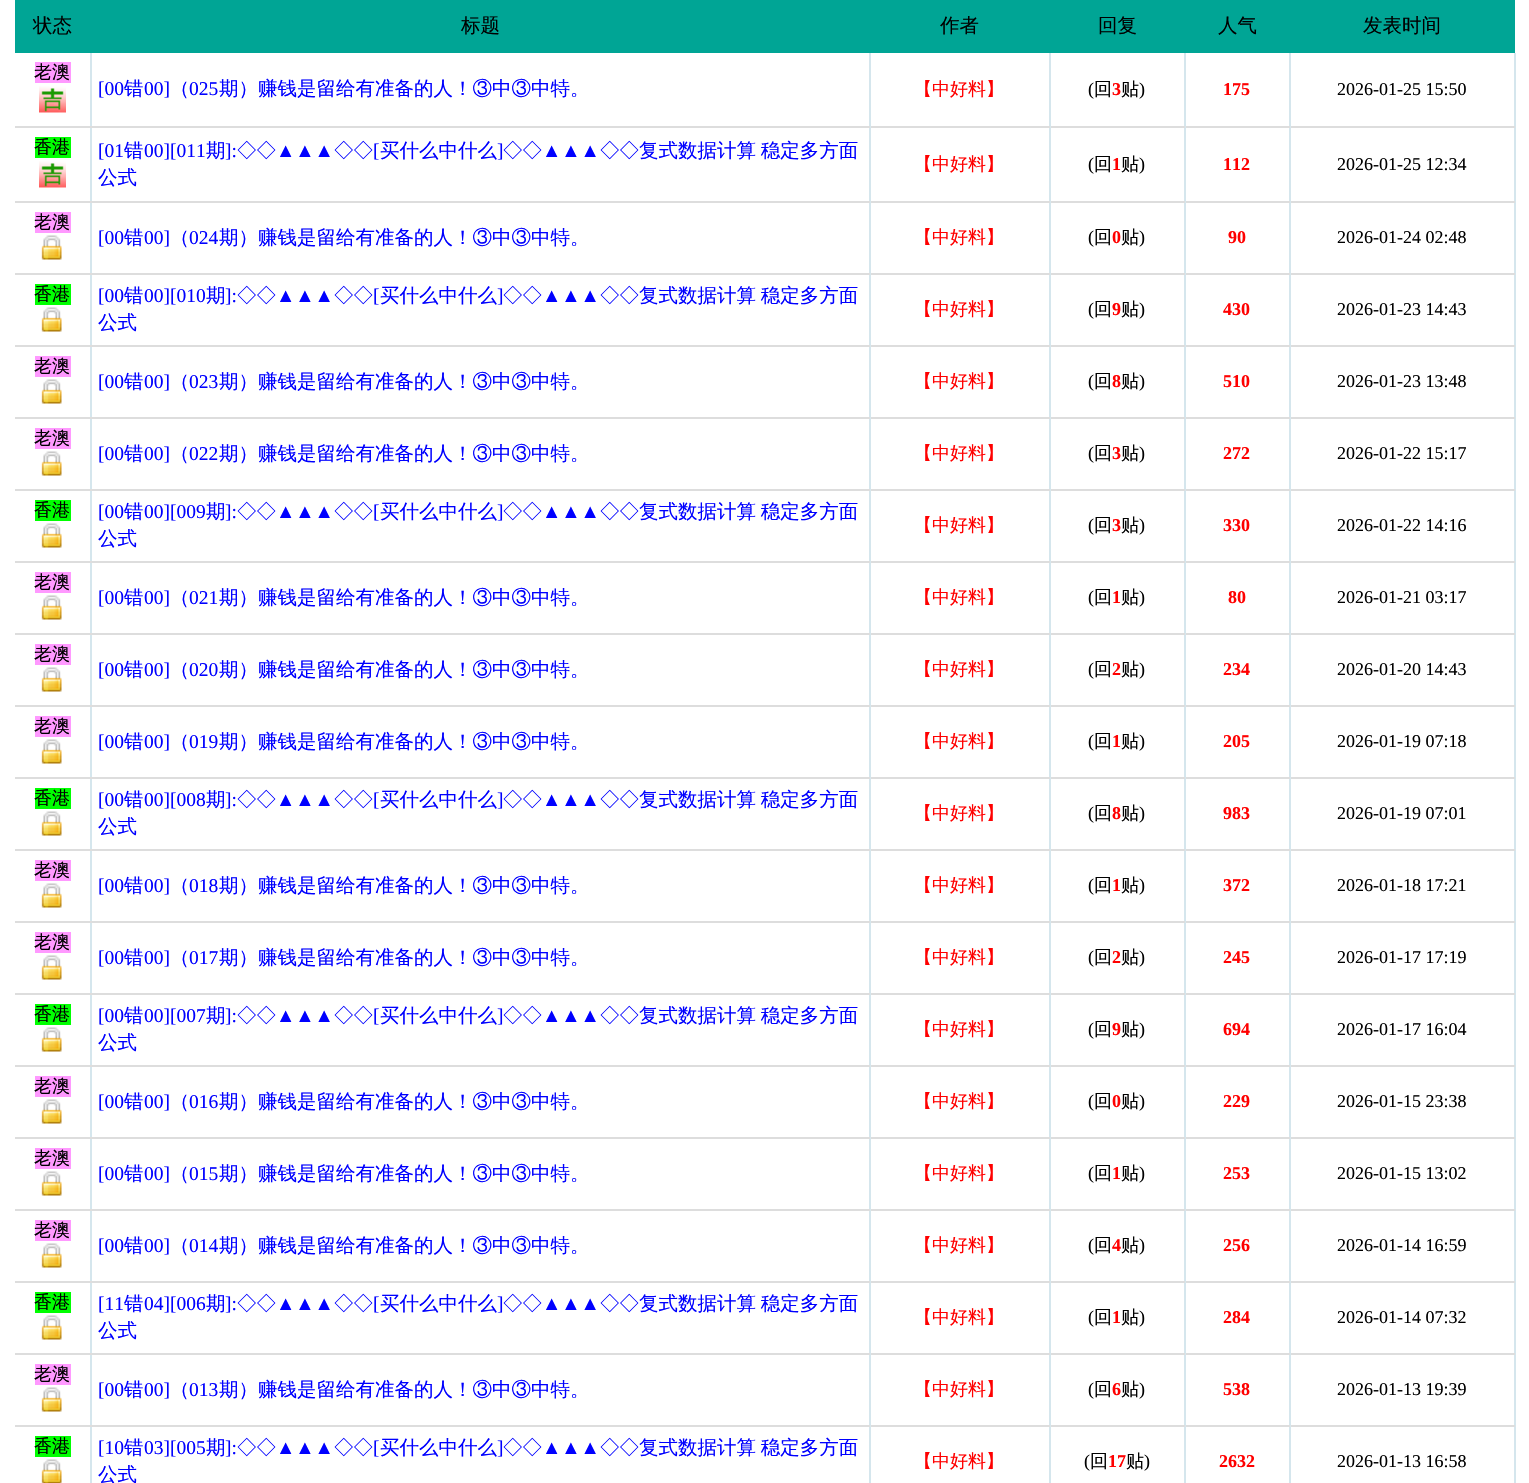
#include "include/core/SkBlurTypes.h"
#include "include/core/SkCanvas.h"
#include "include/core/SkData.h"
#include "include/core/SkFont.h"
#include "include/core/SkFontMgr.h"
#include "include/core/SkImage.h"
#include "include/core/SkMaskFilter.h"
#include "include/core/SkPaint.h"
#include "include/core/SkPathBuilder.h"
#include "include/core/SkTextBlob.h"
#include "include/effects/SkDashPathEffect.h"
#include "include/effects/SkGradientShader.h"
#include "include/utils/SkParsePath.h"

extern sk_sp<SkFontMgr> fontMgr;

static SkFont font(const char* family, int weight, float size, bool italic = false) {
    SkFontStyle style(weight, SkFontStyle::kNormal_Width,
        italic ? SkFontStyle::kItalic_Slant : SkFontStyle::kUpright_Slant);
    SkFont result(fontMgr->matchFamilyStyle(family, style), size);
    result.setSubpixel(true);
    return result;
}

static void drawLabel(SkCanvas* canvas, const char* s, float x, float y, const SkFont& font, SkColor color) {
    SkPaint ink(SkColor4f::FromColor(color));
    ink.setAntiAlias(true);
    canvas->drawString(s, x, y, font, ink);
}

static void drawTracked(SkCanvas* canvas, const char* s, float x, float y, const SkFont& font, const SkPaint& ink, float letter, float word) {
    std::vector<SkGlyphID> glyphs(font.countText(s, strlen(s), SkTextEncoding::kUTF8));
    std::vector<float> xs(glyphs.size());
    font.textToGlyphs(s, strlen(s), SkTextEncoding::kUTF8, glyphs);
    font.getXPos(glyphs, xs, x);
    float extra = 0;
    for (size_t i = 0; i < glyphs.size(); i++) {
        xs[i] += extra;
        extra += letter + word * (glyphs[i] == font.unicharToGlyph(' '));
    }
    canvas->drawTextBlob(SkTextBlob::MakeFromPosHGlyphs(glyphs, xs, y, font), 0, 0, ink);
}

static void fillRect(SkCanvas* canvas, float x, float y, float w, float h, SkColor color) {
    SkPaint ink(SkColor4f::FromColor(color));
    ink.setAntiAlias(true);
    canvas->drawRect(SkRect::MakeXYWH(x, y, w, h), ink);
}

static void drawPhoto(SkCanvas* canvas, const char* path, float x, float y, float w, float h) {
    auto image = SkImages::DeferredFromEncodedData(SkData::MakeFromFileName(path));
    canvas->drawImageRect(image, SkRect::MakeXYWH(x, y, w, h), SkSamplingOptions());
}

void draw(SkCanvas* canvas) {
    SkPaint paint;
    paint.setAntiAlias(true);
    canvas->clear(0xFFFFFFFF);
    fillRect(canvas, 15, 0, 1500, 53, 0xFF00A595);
    SkFont font1 = font("WenQuanYi Zen Hei", 500, 19.5f);
    drawLabel(canvas, "状态", 33, 32, font1, 0xFF000000);
    drawLabel(canvas, "标题", 461, 32, font1, 0xFF000000);
    drawLabel(canvas, "作者", 940, 32, font1, 0xFF000000);
    drawLabel(canvas, "回复", 1098, 32, font1, 0xFF000000);
    drawLabel(canvas, "人气", 1218, 32, font1, 0xFF000000);
    drawLabel(canvas, "发表时间", 1363, 32, font1, 0xFF000000);
    fillRect(canvas, 1514, 53, 2, 1374, 0xFFD5E6ED);
    fillRect(canvas, 1289, 126, 226, 2, 0xFFDDDDDD);
    fillRect(canvas, 1289, 53, 2, 75, 0xFFD5E6ED);
    fillRect(canvas, 1184, 126, 106, 2, 0xFFDDDDDD);
    fillRect(canvas, 1184, 53, 2, 75, 0xFFD5E6ED);
    fillRect(canvas, 1049, 126, 136, 2, 0xFFDDDDDD);
    fillRect(canvas, 1049, 53, 2, 75, 0xFFD5E6ED);
    fillRect(canvas, 869, 126, 181, 2, 0xFFDDDDDD);
    fillRect(canvas, 869, 53, 2, 75, 0xFFD5E6ED);
    fillRect(canvas, 90, 126, 780, 2, 0xFFDDDDDD);
    fillRect(canvas, 90, 53, 2, 75, 0xFFD5E6ED);
    fillRect(canvas, 15, 126, 77, 2, 0xFFDDDDDD);
    fillRect(canvas, 35, 62, 36, 21, 0xFFFF99FF);
    SkFont font2 = font("WenQuanYi Zen Hei", 500, 18);
    drawLabel(canvas, "老澳", 34, 78, font2, 0xFF000000);
    drawPhoto(canvas, "assets/img1.png", 39, 86, 27, 27);
    SkFont font3 = font("Liberation Serif", 400, 19.5f);
    drawLabel(canvas, "[00", 98, 95, font3, 0xFF0000FF);
    drawLabel(canvas, "错", 124, 95, font1, 0xFF0000FF);
    drawLabel(canvas, "00]", 144, 95, font3, 0xFF0000FF);
    drawLabel(canvas, "（", 170, 95, font1, 0xFF0000FF);
    drawLabel(canvas, "025", 189, 95, font3, 0xFF0000FF);
    drawLabel(canvas, "期）赚钱是留给有准备的人！③中③中特。", 219, 95, font1, 0xFF0000FF);
    drawLabel(canvas, "【中好料】", 914, 95, font2, 0xFFFF0000);
    SkFont font4 = font("Liberation Serif", 400, 18);
    drawLabel(canvas, "(", 1088, 95, font4, 0xFF000000);
    drawLabel(canvas, "回", 1094, 95, font2, 0xFF000000);
    SkFont font5 = font("Liberation Serif", 700, 18);
    drawLabel(canvas, "3", 1112, 95, font5, 0xFFFF0000);
    drawLabel(canvas, "贴", 1121, 95, font2, 0xFF000000);
    drawLabel(canvas, ")", 1139, 95, font4, 0xFF000000);
    drawLabel(canvas, "175", 1223, 95, font5, 0xFFFF0000);
    drawLabel(canvas, "2026-01-25 15:50", 1337, 95, font4, 0xFF000000);
    fillRect(canvas, 1289, 201, 226, 2, 0xFFDDDDDD);
    fillRect(canvas, 1289, 128, 2, 75, 0xFFD5E6ED);
    fillRect(canvas, 1184, 201, 106, 2, 0xFFDDDDDD);
    fillRect(canvas, 1184, 128, 2, 75, 0xFFD5E6ED);
    fillRect(canvas, 1049, 201, 136, 2, 0xFFDDDDDD);
    fillRect(canvas, 1049, 128, 2, 75, 0xFFD5E6ED);
    fillRect(canvas, 869, 201, 181, 2, 0xFFDDDDDD);
    fillRect(canvas, 869, 128, 2, 75, 0xFFD5E6ED);
    fillRect(canvas, 90, 201, 780, 2, 0xFFDDDDDD);
    fillRect(canvas, 90, 128, 2, 75, 0xFFD5E6ED);
    fillRect(canvas, 15, 201, 77, 2, 0xFFDDDDDD);
    fillRect(canvas, 35, 137, 36, 21, 0xFF00FF00);
    drawLabel(canvas, "香港", 34, 153, font2, 0xFF000000);
    drawPhoto(canvas, "assets/img1.png", 39, 161, 27, 27);
    drawLabel(canvas, "[01", 98, 157, font3, 0xFF0000FF);
    drawLabel(canvas, "错", 124, 157, font1, 0xFF0000FF);
    drawLabel(canvas, "00][011", 144, 157, font3, 0xFF0000FF);
    drawLabel(canvas, "期", 206, 157, font1, 0xFF0000FF);
    drawLabel(canvas, "]:", 225, 157, font3, 0xFF0000FF);
    drawLabel(canvas, "◇◇", 237, 157, font1, 0xFF0000FF);
    drawLabel(canvas, "▲▲▲", 276, 157, font3, 0xFF0000FF);
    drawLabel(canvas, "◇◇", 334, 157, font1, 0xFF0000FF);
    drawLabel(canvas, "[", 373, 157, font3, 0xFF0000FF);
    drawLabel(canvas, "买什么中什么", 380, 157, font1, 0xFF0000FF);
    drawLabel(canvas, "]", 497, 157, font3, 0xFF0000FF);
    drawLabel(canvas, "◇◇", 503, 157, font1, 0xFF0000FF);
    drawLabel(canvas, "▲▲▲", 542, 157, font3, 0xFF0000FF);
    paint.setColor(0xFF0000FF);
    drawTracked(canvas, "◇◇复式数据计算 稳定多方面", 600, 157, font1, paint, 0, -1);
    drawLabel(canvas, "公式", 98, 184, font1, 0xFF0000FF);
    drawLabel(canvas, "【中好料】", 914, 170, font2, 0xFFFF0000);
    drawLabel(canvas, "(", 1088, 170, font4, 0xFF000000);
    drawLabel(canvas, "回", 1094, 170, font2, 0xFF000000);
    drawLabel(canvas, "1", 1112, 170, font5, 0xFFFF0000);
    drawLabel(canvas, "贴", 1121, 170, font2, 0xFF000000);
    drawLabel(canvas, ")", 1139, 170, font4, 0xFF000000);
    drawLabel(canvas, "112", 1223, 170, font5, 0xFFFF0000);
    drawLabel(canvas, "2026-01-25 12:34", 1337, 170, font4, 0xFF000000);
    fillRect(canvas, 1289, 273, 226, 2, 0xFFDDDDDD);
    fillRect(canvas, 1289, 203, 2, 72, 0xFFD5E6ED);
    fillRect(canvas, 1184, 273, 106, 2, 0xFFDDDDDD);
    fillRect(canvas, 1184, 203, 2, 72, 0xFFD5E6ED);
    fillRect(canvas, 1049, 273, 136, 2, 0xFFDDDDDD);
    fillRect(canvas, 1049, 203, 2, 72, 0xFFD5E6ED);
    fillRect(canvas, 869, 273, 181, 2, 0xFFDDDDDD);
    fillRect(canvas, 869, 203, 2, 72, 0xFFD5E6ED);
    fillRect(canvas, 90, 273, 780, 2, 0xFFDDDDDD);
    fillRect(canvas, 90, 203, 2, 72, 0xFFD5E6ED);
    fillRect(canvas, 15, 273, 77, 2, 0xFFDDDDDD);
    fillRect(canvas, 35, 212, 36, 21, 0xFFFF99FF);
    drawLabel(canvas, "老澳", 34, 228, font2, 0xFF000000);
    drawPhoto(canvas, "assets/img2.png", 41, 235, 21, 25);
    drawLabel(canvas, "[00", 98, 244, font3, 0xFF0000FF);
    drawLabel(canvas, "错", 124, 244, font1, 0xFF0000FF);
    drawLabel(canvas, "00]", 144, 244, font3, 0xFF0000FF);
    drawLabel(canvas, "（", 170, 244, font1, 0xFF0000FF);
    drawLabel(canvas, "024", 189, 244, font3, 0xFF0000FF);
    drawLabel(canvas, "期）赚钱是留给有准备的人！③中③中特。", 219, 244, font1, 0xFF0000FF);
    drawLabel(canvas, "【中好料】", 914, 243, font2, 0xFFFF0000);
    drawLabel(canvas, "(", 1088, 243, font4, 0xFF000000);
    drawLabel(canvas, "回", 1094, 243, font2, 0xFF000000);
    drawLabel(canvas, "0", 1112, 243, font5, 0xFFFF0000);
    drawLabel(canvas, "贴", 1121, 243, font2, 0xFF000000);
    drawLabel(canvas, ")", 1139, 243, font4, 0xFF000000);
    drawLabel(canvas, "90", 1228, 243, font5, 0xFFFF0000);
    drawLabel(canvas, "2026-01-24 02:48", 1337, 243, font4, 0xFF000000);
    fillRect(canvas, 1289, 345, 226, 2, 0xFFDDDDDD);
    fillRect(canvas, 1289, 275, 2, 72, 0xFFD5E6ED);
    fillRect(canvas, 1184, 345, 106, 2, 0xFFDDDDDD);
    fillRect(canvas, 1184, 275, 2, 72, 0xFFD5E6ED);
    fillRect(canvas, 1049, 345, 136, 2, 0xFFDDDDDD);
    fillRect(canvas, 1049, 275, 2, 72, 0xFFD5E6ED);
    fillRect(canvas, 869, 345, 181, 2, 0xFFDDDDDD);
    fillRect(canvas, 869, 275, 2, 72, 0xFFD5E6ED);
    fillRect(canvas, 90, 345, 780, 2, 0xFFDDDDDD);
    fillRect(canvas, 90, 275, 2, 72, 0xFFD5E6ED);
    fillRect(canvas, 15, 345, 77, 2, 0xFFDDDDDD);
    fillRect(canvas, 35, 284, 36, 21, 0xFF00FF00);
    drawLabel(canvas, "香港", 34, 300, font2, 0xFF000000);
    drawPhoto(canvas, "assets/img2.png", 41, 307, 21, 25);
    drawLabel(canvas, "[00", 98, 302, font3, 0xFF0000FF);
    drawLabel(canvas, "错", 124, 302, font1, 0xFF0000FF);
    drawLabel(canvas, "00][010", 144, 302, font3, 0xFF0000FF);
    drawLabel(canvas, "期", 206, 302, font1, 0xFF0000FF);
    drawLabel(canvas, "]:", 225, 302, font3, 0xFF0000FF);
    drawLabel(canvas, "◇◇", 237, 302, font1, 0xFF0000FF);
    drawLabel(canvas, "▲▲▲", 276, 302, font3, 0xFF0000FF);
    drawLabel(canvas, "◇◇", 334, 302, font1, 0xFF0000FF);
    drawLabel(canvas, "[", 373, 302, font3, 0xFF0000FF);
    drawLabel(canvas, "买什么中什么", 380, 302, font1, 0xFF0000FF);
    drawLabel(canvas, "]", 497, 302, font3, 0xFF0000FF);
    drawLabel(canvas, "◇◇", 503, 302, font1, 0xFF0000FF);
    drawLabel(canvas, "▲▲▲", 542, 302, font3, 0xFF0000FF);
    drawTracked(canvas, "◇◇复式数据计算 稳定多方面", 600, 302, font1, paint, 0, -1);
    drawLabel(canvas, "公式", 98, 329, font1, 0xFF0000FF);
    drawLabel(canvas, "【中好料】", 914, 315, font2, 0xFFFF0000);
    drawLabel(canvas, "(", 1088, 315, font4, 0xFF000000);
    drawLabel(canvas, "回", 1094, 315, font2, 0xFF000000);
    drawLabel(canvas, "9", 1112, 315, font5, 0xFFFF0000);
    drawLabel(canvas, "贴", 1121, 315, font2, 0xFF000000);
    drawLabel(canvas, ")", 1139, 315, font4, 0xFF000000);
    drawLabel(canvas, "430", 1223, 315, font5, 0xFFFF0000);
    drawLabel(canvas, "2026-01-23 14:43", 1337, 315, font4, 0xFF000000);
    fillRect(canvas, 1289, 417, 226, 2, 0xFFDDDDDD);
    fillRect(canvas, 1289, 347, 2, 72, 0xFFD5E6ED);
    fillRect(canvas, 1184, 417, 106, 2, 0xFFDDDDDD);
    fillRect(canvas, 1184, 347, 2, 72, 0xFFD5E6ED);
    fillRect(canvas, 1049, 417, 136, 2, 0xFFDDDDDD);
    fillRect(canvas, 1049, 347, 2, 72, 0xFFD5E6ED);
    fillRect(canvas, 869, 417, 181, 2, 0xFFDDDDDD);
    fillRect(canvas, 869, 347, 2, 72, 0xFFD5E6ED);
    fillRect(canvas, 90, 417, 780, 2, 0xFFDDDDDD);
    fillRect(canvas, 90, 347, 2, 72, 0xFFD5E6ED);
    fillRect(canvas, 15, 417, 77, 2, 0xFFDDDDDD);
    fillRect(canvas, 35, 356, 36, 21, 0xFFFF99FF);
    drawLabel(canvas, "老澳", 34, 372, font2, 0xFF000000);
    drawPhoto(canvas, "assets/img2.png", 41, 379, 21, 25);
    drawLabel(canvas, "[00", 98, 388, font3, 0xFF0000FF);
    drawLabel(canvas, "错", 124, 388, font1, 0xFF0000FF);
    drawLabel(canvas, "00]", 144, 388, font3, 0xFF0000FF);
    drawLabel(canvas, "（", 170, 388, font1, 0xFF0000FF);
    drawLabel(canvas, "023", 189, 388, font3, 0xFF0000FF);
    drawLabel(canvas, "期）赚钱是留给有准备的人！③中③中特。", 219, 388, font1, 0xFF0000FF);
    drawLabel(canvas, "【中好料】", 914, 387, font2, 0xFFFF0000);
    drawLabel(canvas, "(", 1088, 387, font4, 0xFF000000);
    drawLabel(canvas, "回", 1094, 387, font2, 0xFF000000);
    drawLabel(canvas, "8", 1112, 387, font5, 0xFFFF0000);
    drawLabel(canvas, "贴", 1121, 387, font2, 0xFF000000);
    drawLabel(canvas, ")", 1139, 387, font4, 0xFF000000);
    drawLabel(canvas, "510", 1223, 387, font5, 0xFFFF0000);
    drawLabel(canvas, "2026-01-23 13:48", 1337, 387, font4, 0xFF000000);
    fillRect(canvas, 1289, 489, 226, 2, 0xFFDDDDDD);
    fillRect(canvas, 1289, 419, 2, 72, 0xFFD5E6ED);
    fillRect(canvas, 1184, 489, 106, 2, 0xFFDDDDDD);
    fillRect(canvas, 1184, 419, 2, 72, 0xFFD5E6ED);
    fillRect(canvas, 1049, 489, 136, 2, 0xFFDDDDDD);
    fillRect(canvas, 1049, 419, 2, 72, 0xFFD5E6ED);
    fillRect(canvas, 869, 489, 181, 2, 0xFFDDDDDD);
    fillRect(canvas, 869, 419, 2, 72, 0xFFD5E6ED);
    fillRect(canvas, 90, 489, 780, 2, 0xFFDDDDDD);
    fillRect(canvas, 90, 419, 2, 72, 0xFFD5E6ED);
    fillRect(canvas, 15, 489, 77, 2, 0xFFDDDDDD);
    fillRect(canvas, 35, 428, 36, 21, 0xFFFF99FF);
    drawLabel(canvas, "老澳", 34, 444, font2, 0xFF000000);
    drawPhoto(canvas, "assets/img2.png", 41, 451, 21, 25);
    drawLabel(canvas, "[00", 98, 460, font3, 0xFF0000FF);
    drawLabel(canvas, "错", 124, 460, font1, 0xFF0000FF);
    drawLabel(canvas, "00]", 144, 460, font3, 0xFF0000FF);
    drawLabel(canvas, "（", 170, 460, font1, 0xFF0000FF);
    drawLabel(canvas, "022", 189, 460, font3, 0xFF0000FF);
    drawLabel(canvas, "期）赚钱是留给有准备的人！③中③中特。", 219, 460, font1, 0xFF0000FF);
    drawLabel(canvas, "【中好料】", 914, 459, font2, 0xFFFF0000);
    drawLabel(canvas, "(", 1088, 459, font4, 0xFF000000);
    drawLabel(canvas, "回", 1094, 459, font2, 0xFF000000);
    drawLabel(canvas, "3", 1112, 459, font5, 0xFFFF0000);
    drawLabel(canvas, "贴", 1121, 459, font2, 0xFF000000);
    drawLabel(canvas, ")", 1139, 459, font4, 0xFF000000);
    drawLabel(canvas, "272", 1223, 459, font5, 0xFFFF0000);
    drawLabel(canvas, "2026-01-22 15:17", 1337, 459, font4, 0xFF000000);
    fillRect(canvas, 1289, 561, 226, 2, 0xFFDDDDDD);
    fillRect(canvas, 1289, 491, 2, 72, 0xFFD5E6ED);
    fillRect(canvas, 1184, 561, 106, 2, 0xFFDDDDDD);
    fillRect(canvas, 1184, 491, 2, 72, 0xFFD5E6ED);
    fillRect(canvas, 1049, 561, 136, 2, 0xFFDDDDDD);
    fillRect(canvas, 1049, 491, 2, 72, 0xFFD5E6ED);
    fillRect(canvas, 869, 561, 181, 2, 0xFFDDDDDD);
    fillRect(canvas, 869, 491, 2, 72, 0xFFD5E6ED);
    fillRect(canvas, 90, 561, 780, 2, 0xFFDDDDDD);
    fillRect(canvas, 90, 491, 2, 72, 0xFFD5E6ED);
    fillRect(canvas, 15, 561, 77, 2, 0xFFDDDDDD);
    fillRect(canvas, 35, 500, 36, 21, 0xFF00FF00);
    drawLabel(canvas, "香港", 34, 516, font2, 0xFF000000);
    drawPhoto(canvas, "assets/img2.png", 41, 523, 21, 25);
    drawLabel(canvas, "[00", 98, 518, font3, 0xFF0000FF);
    drawLabel(canvas, "错", 124, 518, font1, 0xFF0000FF);
    drawLabel(canvas, "00][009", 144, 518, font3, 0xFF0000FF);
    drawLabel(canvas, "期", 206, 518, font1, 0xFF0000FF);
    drawLabel(canvas, "]:", 225, 518, font3, 0xFF0000FF);
    drawLabel(canvas, "◇◇", 237, 518, font1, 0xFF0000FF);
    drawLabel(canvas, "▲▲▲", 276, 518, font3, 0xFF0000FF);
    drawLabel(canvas, "◇◇", 334, 518, font1, 0xFF0000FF);
    drawLabel(canvas, "[", 373, 518, font3, 0xFF0000FF);
    drawLabel(canvas, "买什么中什么", 380, 518, font1, 0xFF0000FF);
    drawLabel(canvas, "]", 497, 518, font3, 0xFF0000FF);
    drawLabel(canvas, "◇◇", 503, 518, font1, 0xFF0000FF);
    drawLabel(canvas, "▲▲▲", 542, 518, font3, 0xFF0000FF);
    drawTracked(canvas, "◇◇复式数据计算 稳定多方面", 600, 518, font1, paint, 0, -1);
    drawLabel(canvas, "公式", 98, 545, font1, 0xFF0000FF);
    drawLabel(canvas, "【中好料】", 914, 531, font2, 0xFFFF0000);
    drawLabel(canvas, "(", 1088, 531, font4, 0xFF000000);
    drawLabel(canvas, "回", 1094, 531, font2, 0xFF000000);
    drawLabel(canvas, "3", 1112, 531, font5, 0xFFFF0000);
    drawLabel(canvas, "贴", 1121, 531, font2, 0xFF000000);
    drawLabel(canvas, ")", 1139, 531, font4, 0xFF000000);
    drawLabel(canvas, "330", 1223, 531, font5, 0xFFFF0000);
    drawLabel(canvas, "2026-01-22 14:16", 1337, 531, font4, 0xFF000000);
    fillRect(canvas, 1289, 633, 226, 2, 0xFFDDDDDD);
    fillRect(canvas, 1289, 563, 2, 72, 0xFFD5E6ED);
    fillRect(canvas, 1184, 633, 106, 2, 0xFFDDDDDD);
    fillRect(canvas, 1184, 563, 2, 72, 0xFFD5E6ED);
    fillRect(canvas, 1049, 633, 136, 2, 0xFFDDDDDD);
    fillRect(canvas, 1049, 563, 2, 72, 0xFFD5E6ED);
    fillRect(canvas, 869, 633, 181, 2, 0xFFDDDDDD);
    fillRect(canvas, 869, 563, 2, 72, 0xFFD5E6ED);
    fillRect(canvas, 90, 633, 780, 2, 0xFFDDDDDD);
    fillRect(canvas, 90, 563, 2, 72, 0xFFD5E6ED);
    fillRect(canvas, 15, 633, 77, 2, 0xFFDDDDDD);
    fillRect(canvas, 35, 572, 36, 21, 0xFFFF99FF);
    drawLabel(canvas, "老澳", 34, 588, font2, 0xFF000000);
    drawPhoto(canvas, "assets/img2.png", 41, 595, 21, 25);
    drawLabel(canvas, "[00", 98, 604, font3, 0xFF0000FF);
    drawLabel(canvas, "错", 124, 604, font1, 0xFF0000FF);
    drawLabel(canvas, "00]", 144, 604, font3, 0xFF0000FF);
    drawLabel(canvas, "（", 170, 604, font1, 0xFF0000FF);
    drawLabel(canvas, "021", 189, 604, font3, 0xFF0000FF);
    drawLabel(canvas, "期）赚钱是留给有准备的人！③中③中特。", 219, 604, font1, 0xFF0000FF);
    drawLabel(canvas, "【中好料】", 914, 603, font2, 0xFFFF0000);
    drawLabel(canvas, "(", 1088, 603, font4, 0xFF000000);
    drawLabel(canvas, "回", 1094, 603, font2, 0xFF000000);
    drawLabel(canvas, "1", 1112, 603, font5, 0xFFFF0000);
    drawLabel(canvas, "贴", 1121, 603, font2, 0xFF000000);
    drawLabel(canvas, ")", 1139, 603, font4, 0xFF000000);
    drawLabel(canvas, "80", 1228, 603, font5, 0xFFFF0000);
    drawLabel(canvas, "2026-01-21 03:17", 1337, 603, font4, 0xFF000000);
    fillRect(canvas, 1289, 705, 226, 2, 0xFFDDDDDD);
    fillRect(canvas, 1289, 635, 2, 72, 0xFFD5E6ED);
    fillRect(canvas, 1184, 705, 106, 2, 0xFFDDDDDD);
    fillRect(canvas, 1184, 635, 2, 72, 0xFFD5E6ED);
    fillRect(canvas, 1049, 705, 136, 2, 0xFFDDDDDD);
    fillRect(canvas, 1049, 635, 2, 72, 0xFFD5E6ED);
    fillRect(canvas, 869, 705, 181, 2, 0xFFDDDDDD);
    fillRect(canvas, 869, 635, 2, 72, 0xFFD5E6ED);
    fillRect(canvas, 90, 705, 780, 2, 0xFFDDDDDD);
    fillRect(canvas, 90, 635, 2, 72, 0xFFD5E6ED);
    fillRect(canvas, 15, 705, 77, 2, 0xFFDDDDDD);
    fillRect(canvas, 35, 644, 36, 21, 0xFFFF99FF);
    drawLabel(canvas, "老澳", 34, 660, font2, 0xFF000000);
    drawPhoto(canvas, "assets/img2.png", 41, 667, 21, 25);
    drawLabel(canvas, "[00", 98, 676, font3, 0xFF0000FF);
    drawLabel(canvas, "错", 124, 676, font1, 0xFF0000FF);
    drawLabel(canvas, "00]", 144, 676, font3, 0xFF0000FF);
    drawLabel(canvas, "（", 170, 676, font1, 0xFF0000FF);
    drawLabel(canvas, "020", 189, 676, font3, 0xFF0000FF);
    drawLabel(canvas, "期）赚钱是留给有准备的人！③中③中特。", 219, 676, font1, 0xFF0000FF);
    drawLabel(canvas, "【中好料】", 914, 675, font2, 0xFFFF0000);
    drawLabel(canvas, "(", 1088, 675, font4, 0xFF000000);
    drawLabel(canvas, "回", 1094, 675, font2, 0xFF000000);
    drawLabel(canvas, "2", 1112, 675, font5, 0xFFFF0000);
    drawLabel(canvas, "贴", 1121, 675, font2, 0xFF000000);
    drawLabel(canvas, ")", 1139, 675, font4, 0xFF000000);
    drawLabel(canvas, "234", 1223, 675, font5, 0xFFFF0000);
    drawLabel(canvas, "2026-01-20 14:43", 1337, 675, font4, 0xFF000000);
    fillRect(canvas, 1289, 777, 226, 2, 0xFFDDDDDD);
    fillRect(canvas, 1289, 707, 2, 72, 0xFFD5E6ED);
    fillRect(canvas, 1184, 777, 106, 2, 0xFFDDDDDD);
    fillRect(canvas, 1184, 707, 2, 72, 0xFFD5E6ED);
    fillRect(canvas, 1049, 777, 136, 2, 0xFFDDDDDD);
    fillRect(canvas, 1049, 707, 2, 72, 0xFFD5E6ED);
    fillRect(canvas, 869, 777, 181, 2, 0xFFDDDDDD);
    fillRect(canvas, 869, 707, 2, 72, 0xFFD5E6ED);
    fillRect(canvas, 90, 777, 780, 2, 0xFFDDDDDD);
    fillRect(canvas, 90, 707, 2, 72, 0xFFD5E6ED);
    fillRect(canvas, 15, 777, 77, 2, 0xFFDDDDDD);
    fillRect(canvas, 35, 716, 36, 21, 0xFFFF99FF);
    drawLabel(canvas, "老澳", 34, 732, font2, 0xFF000000);
    drawPhoto(canvas, "assets/img2.png", 41, 739, 21, 25);
    drawLabel(canvas, "[00", 98, 748, font3, 0xFF0000FF);
    drawLabel(canvas, "错", 124, 748, font1, 0xFF0000FF);
    drawLabel(canvas, "00]", 144, 748, font3, 0xFF0000FF);
    drawLabel(canvas, "（", 170, 748, font1, 0xFF0000FF);
    drawLabel(canvas, "019", 189, 748, font3, 0xFF0000FF);
    drawLabel(canvas, "期）赚钱是留给有准备的人！③中③中特。", 219, 748, font1, 0xFF0000FF);
    drawLabel(canvas, "【中好料】", 914, 747, font2, 0xFFFF0000);
    drawLabel(canvas, "(", 1088, 747, font4, 0xFF000000);
    drawLabel(canvas, "回", 1094, 747, font2, 0xFF000000);
    drawLabel(canvas, "1", 1112, 747, font5, 0xFFFF0000);
    drawLabel(canvas, "贴", 1121, 747, font2, 0xFF000000);
    drawLabel(canvas, ")", 1139, 747, font4, 0xFF000000);
    drawLabel(canvas, "205", 1223, 747, font5, 0xFFFF0000);
    drawLabel(canvas, "2026-01-19 07:18", 1337, 747, font4, 0xFF000000);
    fillRect(canvas, 1289, 849, 226, 2, 0xFFDDDDDD);
    fillRect(canvas, 1289, 779, 2, 72, 0xFFD5E6ED);
    fillRect(canvas, 1184, 849, 106, 2, 0xFFDDDDDD);
    fillRect(canvas, 1184, 779, 2, 72, 0xFFD5E6ED);
    fillRect(canvas, 1049, 849, 136, 2, 0xFFDDDDDD);
    fillRect(canvas, 1049, 779, 2, 72, 0xFFD5E6ED);
    fillRect(canvas, 869, 849, 181, 2, 0xFFDDDDDD);
    fillRect(canvas, 869, 779, 2, 72, 0xFFD5E6ED);
    fillRect(canvas, 90, 849, 780, 2, 0xFFDDDDDD);
    fillRect(canvas, 90, 779, 2, 72, 0xFFD5E6ED);
    fillRect(canvas, 15, 849, 77, 2, 0xFFDDDDDD);
    fillRect(canvas, 35, 788, 36, 21, 0xFF00FF00);
    drawLabel(canvas, "香港", 34, 804, font2, 0xFF000000);
    drawPhoto(canvas, "assets/img2.png", 41, 811, 21, 25);
    drawLabel(canvas, "[00", 98, 806, font3, 0xFF0000FF);
    drawLabel(canvas, "错", 124, 806, font1, 0xFF0000FF);
    drawLabel(canvas, "00][008", 144, 806, font3, 0xFF0000FF);
    drawLabel(canvas, "期", 206, 806, font1, 0xFF0000FF);
    drawLabel(canvas, "]:", 225, 806, font3, 0xFF0000FF);
    drawLabel(canvas, "◇◇", 237, 806, font1, 0xFF0000FF);
    drawLabel(canvas, "▲▲▲", 276, 806, font3, 0xFF0000FF);
    drawLabel(canvas, "◇◇", 334, 806, font1, 0xFF0000FF);
    drawLabel(canvas, "[", 373, 806, font3, 0xFF0000FF);
    drawLabel(canvas, "买什么中什么", 380, 806, font1, 0xFF0000FF);
    drawLabel(canvas, "]", 497, 806, font3, 0xFF0000FF);
    drawLabel(canvas, "◇◇", 503, 806, font1, 0xFF0000FF);
    drawLabel(canvas, "▲▲▲", 542, 806, font3, 0xFF0000FF);
    drawTracked(canvas, "◇◇复式数据计算 稳定多方面", 600, 806, font1, paint, 0, -1);
    drawLabel(canvas, "公式", 98, 833, font1, 0xFF0000FF);
    drawLabel(canvas, "【中好料】", 914, 819, font2, 0xFFFF0000);
    drawLabel(canvas, "(", 1088, 819, font4, 0xFF000000);
    drawLabel(canvas, "回", 1094, 819, font2, 0xFF000000);
    drawLabel(canvas, "8", 1112, 819, font5, 0xFFFF0000);
    drawLabel(canvas, "贴", 1121, 819, font2, 0xFF000000);
    drawLabel(canvas, ")", 1139, 819, font4, 0xFF000000);
    drawLabel(canvas, "983", 1223, 819, font5, 0xFFFF0000);
    drawLabel(canvas, "2026-01-19 07:01", 1337, 819, font4, 0xFF000000);
    fillRect(canvas, 1289, 921, 226, 2, 0xFFDDDDDD);
    fillRect(canvas, 1289, 851, 2, 72, 0xFFD5E6ED);
    fillRect(canvas, 1184, 921, 106, 2, 0xFFDDDDDD);
    fillRect(canvas, 1184, 851, 2, 72, 0xFFD5E6ED);
    fillRect(canvas, 1049, 921, 136, 2, 0xFFDDDDDD);
    fillRect(canvas, 1049, 851, 2, 72, 0xFFD5E6ED);
    fillRect(canvas, 869, 921, 181, 2, 0xFFDDDDDD);
    fillRect(canvas, 869, 851, 2, 72, 0xFFD5E6ED);
    fillRect(canvas, 90, 921, 780, 2, 0xFFDDDDDD);
    fillRect(canvas, 90, 851, 2, 72, 0xFFD5E6ED);
    fillRect(canvas, 15, 921, 77, 2, 0xFFDDDDDD);
    fillRect(canvas, 35, 860, 36, 21, 0xFFFF99FF);
    drawLabel(canvas, "老澳", 34, 876, font2, 0xFF000000);
    drawPhoto(canvas, "assets/img2.png", 41, 883, 21, 25);
    drawLabel(canvas, "[00", 98, 892, font3, 0xFF0000FF);
    drawLabel(canvas, "错", 124, 892, font1, 0xFF0000FF);
    drawLabel(canvas, "00]", 144, 892, font3, 0xFF0000FF);
    drawLabel(canvas, "（", 170, 892, font1, 0xFF0000FF);
    drawLabel(canvas, "018", 189, 892, font3, 0xFF0000FF);
    drawLabel(canvas, "期）赚钱是留给有准备的人！③中③中特。", 219, 892, font1, 0xFF0000FF);
    drawLabel(canvas, "【中好料】", 914, 891, font2, 0xFFFF0000);
    drawLabel(canvas, "(", 1088, 891, font4, 0xFF000000);
    drawLabel(canvas, "回", 1094, 891, font2, 0xFF000000);
    drawLabel(canvas, "1", 1112, 891, font5, 0xFFFF0000);
    drawLabel(canvas, "贴", 1121, 891, font2, 0xFF000000);
    drawLabel(canvas, ")", 1139, 891, font4, 0xFF000000);
    drawLabel(canvas, "372", 1223, 891, font5, 0xFFFF0000);
    drawLabel(canvas, "2026-01-18 17:21", 1337, 891, font4, 0xFF000000);
    fillRect(canvas, 1289, 993, 226, 2, 0xFFDDDDDD);
    fillRect(canvas, 1289, 923, 2, 72, 0xFFD5E6ED);
    fillRect(canvas, 1184, 993, 106, 2, 0xFFDDDDDD);
    fillRect(canvas, 1184, 923, 2, 72, 0xFFD5E6ED);
    fillRect(canvas, 1049, 993, 136, 2, 0xFFDDDDDD);
    fillRect(canvas, 1049, 923, 2, 72, 0xFFD5E6ED);
    fillRect(canvas, 869, 993, 181, 2, 0xFFDDDDDD);
    fillRect(canvas, 869, 923, 2, 72, 0xFFD5E6ED);
    fillRect(canvas, 90, 993, 780, 2, 0xFFDDDDDD);
    fillRect(canvas, 90, 923, 2, 72, 0xFFD5E6ED);
    fillRect(canvas, 15, 993, 77, 2, 0xFFDDDDDD);
    fillRect(canvas, 35, 932, 36, 21, 0xFFFF99FF);
    drawLabel(canvas, "老澳", 34, 948, font2, 0xFF000000);
    drawPhoto(canvas, "assets/img2.png", 41, 955, 21, 25);
    drawLabel(canvas, "[00", 98, 964, font3, 0xFF0000FF);
    drawLabel(canvas, "错", 124, 964, font1, 0xFF0000FF);
    drawLabel(canvas, "00]", 144, 964, font3, 0xFF0000FF);
    drawLabel(canvas, "（", 170, 964, font1, 0xFF0000FF);
    drawLabel(canvas, "017", 189, 964, font3, 0xFF0000FF);
    drawLabel(canvas, "期）赚钱是留给有准备的人！③中③中特。", 219, 964, font1, 0xFF0000FF);
    drawLabel(canvas, "【中好料】", 914, 963, font2, 0xFFFF0000);
    drawLabel(canvas, "(", 1088, 963, font4, 0xFF000000);
    drawLabel(canvas, "回", 1094, 963, font2, 0xFF000000);
    drawLabel(canvas, "2", 1112, 963, font5, 0xFFFF0000);
    drawLabel(canvas, "贴", 1121, 963, font2, 0xFF000000);
    drawLabel(canvas, ")", 1139, 963, font4, 0xFF000000);
    drawLabel(canvas, "245", 1223, 963, font5, 0xFFFF0000);
    drawLabel(canvas, "2026-01-17 17:19", 1337, 963, font4, 0xFF000000);
    fillRect(canvas, 1289, 1065, 226, 2, 0xFFDDDDDD);
    fillRect(canvas, 1289, 995, 2, 72, 0xFFD5E6ED);
    fillRect(canvas, 1184, 1065, 106, 2, 0xFFDDDDDD);
    fillRect(canvas, 1184, 995, 2, 72, 0xFFD5E6ED);
    fillRect(canvas, 1049, 1065, 136, 2, 0xFFDDDDDD);
    fillRect(canvas, 1049, 995, 2, 72, 0xFFD5E6ED);
    fillRect(canvas, 869, 1065, 181, 2, 0xFFDDDDDD);
    fillRect(canvas, 869, 995, 2, 72, 0xFFD5E6ED);
    fillRect(canvas, 90, 1065, 780, 2, 0xFFDDDDDD);
    fillRect(canvas, 90, 995, 2, 72, 0xFFD5E6ED);
    fillRect(canvas, 15, 1065, 77, 2, 0xFFDDDDDD);
    fillRect(canvas, 35, 1004, 36, 21, 0xFF00FF00);
    drawLabel(canvas, "香港", 34, 1020, font2, 0xFF000000);
    drawPhoto(canvas, "assets/img2.png", 41, 1027, 21, 25);
    drawLabel(canvas, "[00", 98, 1022, font3, 0xFF0000FF);
    drawLabel(canvas, "错", 124, 1022, font1, 0xFF0000FF);
    drawLabel(canvas, "00][007", 144, 1022, font3, 0xFF0000FF);
    drawLabel(canvas, "期", 206, 1022, font1, 0xFF0000FF);
    drawLabel(canvas, "]:", 225, 1022, font3, 0xFF0000FF);
    drawLabel(canvas, "◇◇", 237, 1022, font1, 0xFF0000FF);
    drawLabel(canvas, "▲▲▲", 276, 1022, font3, 0xFF0000FF);
    drawLabel(canvas, "◇◇", 334, 1022, font1, 0xFF0000FF);
    drawLabel(canvas, "[", 373, 1022, font3, 0xFF0000FF);
    drawLabel(canvas, "买什么中什么", 380, 1022, font1, 0xFF0000FF);
    drawLabel(canvas, "]", 497, 1022, font3, 0xFF0000FF);
    drawLabel(canvas, "◇◇", 503, 1022, font1, 0xFF0000FF);
    drawLabel(canvas, "▲▲▲", 542, 1022, font3, 0xFF0000FF);
    drawTracked(canvas, "◇◇复式数据计算 稳定多方面", 600, 1022, font1, paint, 0, -1);
    drawLabel(canvas, "公式", 98, 1049, font1, 0xFF0000FF);
    drawLabel(canvas, "【中好料】", 914, 1035, font2, 0xFFFF0000);
    drawLabel(canvas, "(", 1088, 1035, font4, 0xFF000000);
    drawLabel(canvas, "回", 1094, 1035, font2, 0xFF000000);
    drawLabel(canvas, "9", 1112, 1035, font5, 0xFFFF0000);
    drawLabel(canvas, "贴", 1121, 1035, font2, 0xFF000000);
    drawLabel(canvas, ")", 1139, 1035, font4, 0xFF000000);
    drawLabel(canvas, "694", 1223, 1035, font5, 0xFFFF0000);
    drawLabel(canvas, "2026-01-17 16:04", 1337, 1035, font4, 0xFF000000);
    fillRect(canvas, 1289, 1137, 226, 2, 0xFFDDDDDD);
    fillRect(canvas, 1289, 1067, 2, 72, 0xFFD5E6ED);
    fillRect(canvas, 1184, 1137, 106, 2, 0xFFDDDDDD);
    fillRect(canvas, 1184, 1067, 2, 72, 0xFFD5E6ED);
    fillRect(canvas, 1049, 1137, 136, 2, 0xFFDDDDDD);
    fillRect(canvas, 1049, 1067, 2, 72, 0xFFD5E6ED);
    fillRect(canvas, 869, 1137, 181, 2, 0xFFDDDDDD);
    fillRect(canvas, 869, 1067, 2, 72, 0xFFD5E6ED);
    fillRect(canvas, 90, 1137, 780, 2, 0xFFDDDDDD);
    fillRect(canvas, 90, 1067, 2, 72, 0xFFD5E6ED);
    fillRect(canvas, 15, 1137, 77, 2, 0xFFDDDDDD);
    fillRect(canvas, 35, 1076, 36, 21, 0xFFFF99FF);
    drawLabel(canvas, "老澳", 34, 1092, font2, 0xFF000000);
    drawPhoto(canvas, "assets/img2.png", 41, 1099, 21, 25);
    drawLabel(canvas, "[00", 98, 1108, font3, 0xFF0000FF);
    drawLabel(canvas, "错", 124, 1108, font1, 0xFF0000FF);
    drawLabel(canvas, "00]", 144, 1108, font3, 0xFF0000FF);
    drawLabel(canvas, "（", 170, 1108, font1, 0xFF0000FF);
    drawLabel(canvas, "016", 189, 1108, font3, 0xFF0000FF);
    drawLabel(canvas, "期）赚钱是留给有准备的人！③中③中特。", 219, 1108, font1, 0xFF0000FF);
    drawLabel(canvas, "【中好料】", 914, 1107, font2, 0xFFFF0000);
    drawLabel(canvas, "(", 1088, 1107, font4, 0xFF000000);
    drawLabel(canvas, "回", 1094, 1107, font2, 0xFF000000);
    drawLabel(canvas, "0", 1112, 1107, font5, 0xFFFF0000);
    drawLabel(canvas, "贴", 1121, 1107, font2, 0xFF000000);
    drawLabel(canvas, ")", 1139, 1107, font4, 0xFF000000);
    drawLabel(canvas, "229", 1223, 1107, font5, 0xFFFF0000);
    drawLabel(canvas, "2026-01-15 23:38", 1337, 1107, font4, 0xFF000000);
    fillRect(canvas, 1289, 1209, 226, 2, 0xFFDDDDDD);
    fillRect(canvas, 1289, 1139, 2, 72, 0xFFD5E6ED);
    fillRect(canvas, 1184, 1209, 106, 2, 0xFFDDDDDD);
    fillRect(canvas, 1184, 1139, 2, 72, 0xFFD5E6ED);
    fillRect(canvas, 1049, 1209, 136, 2, 0xFFDDDDDD);
    fillRect(canvas, 1049, 1139, 2, 72, 0xFFD5E6ED);
    fillRect(canvas, 869, 1209, 181, 2, 0xFFDDDDDD);
    fillRect(canvas, 869, 1139, 2, 72, 0xFFD5E6ED);
    fillRect(canvas, 90, 1209, 780, 2, 0xFFDDDDDD);
    fillRect(canvas, 90, 1139, 2, 72, 0xFFD5E6ED);
    fillRect(canvas, 15, 1209, 77, 2, 0xFFDDDDDD);
    fillRect(canvas, 35, 1148, 36, 21, 0xFFFF99FF);
    drawLabel(canvas, "老澳", 34, 1164, font2, 0xFF000000);
    drawPhoto(canvas, "assets/img2.png", 41, 1171, 21, 25);
    drawLabel(canvas, "[00", 98, 1180, font3, 0xFF0000FF);
    drawLabel(canvas, "错", 124, 1180, font1, 0xFF0000FF);
    drawLabel(canvas, "00]", 144, 1180, font3, 0xFF0000FF);
    drawLabel(canvas, "（", 170, 1180, font1, 0xFF0000FF);
    drawLabel(canvas, "015", 189, 1180, font3, 0xFF0000FF);
    drawLabel(canvas, "期）赚钱是留给有准备的人！③中③中特。", 219, 1180, font1, 0xFF0000FF);
    drawLabel(canvas, "【中好料】", 914, 1179, font2, 0xFFFF0000);
    drawLabel(canvas, "(", 1088, 1179, font4, 0xFF000000);
    drawLabel(canvas, "回", 1094, 1179, font2, 0xFF000000);
    drawLabel(canvas, "1", 1112, 1179, font5, 0xFFFF0000);
    drawLabel(canvas, "贴", 1121, 1179, font2, 0xFF000000);
    drawLabel(canvas, ")", 1139, 1179, font4, 0xFF000000);
    drawLabel(canvas, "253", 1223, 1179, font5, 0xFFFF0000);
    drawLabel(canvas, "2026-01-15 13:02", 1337, 1179, font4, 0xFF000000);
    fillRect(canvas, 1289, 1281, 226, 2, 0xFFDDDDDD);
    fillRect(canvas, 1289, 1211, 2, 72, 0xFFD5E6ED);
    fillRect(canvas, 1184, 1281, 106, 2, 0xFFDDDDDD);
    fillRect(canvas, 1184, 1211, 2, 72, 0xFFD5E6ED);
    fillRect(canvas, 1049, 1281, 136, 2, 0xFFDDDDDD);
    fillRect(canvas, 1049, 1211, 2, 72, 0xFFD5E6ED);
    fillRect(canvas, 869, 1281, 181, 2, 0xFFDDDDDD);
    fillRect(canvas, 869, 1211, 2, 72, 0xFFD5E6ED);
    fillRect(canvas, 90, 1281, 780, 2, 0xFFDDDDDD);
    fillRect(canvas, 90, 1211, 2, 72, 0xFFD5E6ED);
    fillRect(canvas, 15, 1281, 77, 2, 0xFFDDDDDD);
    fillRect(canvas, 35, 1220, 36, 21, 0xFFFF99FF);
    drawLabel(canvas, "老澳", 34, 1236, font2, 0xFF000000);
    drawPhoto(canvas, "assets/img2.png", 41, 1243, 21, 25);
    drawLabel(canvas, "[00", 98, 1252, font3, 0xFF0000FF);
    drawLabel(canvas, "错", 124, 1252, font1, 0xFF0000FF);
    drawLabel(canvas, "00]", 144, 1252, font3, 0xFF0000FF);
    drawLabel(canvas, "（", 170, 1252, font1, 0xFF0000FF);
    drawLabel(canvas, "014", 189, 1252, font3, 0xFF0000FF);
    drawLabel(canvas, "期）赚钱是留给有准备的人！③中③中特。", 219, 1252, font1, 0xFF0000FF);
    drawLabel(canvas, "【中好料】", 914, 1251, font2, 0xFFFF0000);
    drawLabel(canvas, "(", 1088, 1251, font4, 0xFF000000);
    drawLabel(canvas, "回", 1094, 1251, font2, 0xFF000000);
    drawLabel(canvas, "4", 1112, 1251, font5, 0xFFFF0000);
    drawLabel(canvas, "贴", 1121, 1251, font2, 0xFF000000);
    drawLabel(canvas, ")", 1139, 1251, font4, 0xFF000000);
    drawLabel(canvas, "256", 1223, 1251, font5, 0xFFFF0000);
    drawLabel(canvas, "2026-01-14 16:59", 1337, 1251, font4, 0xFF000000);
    fillRect(canvas, 1289, 1353, 226, 2, 0xFFDDDDDD);
    fillRect(canvas, 1289, 1283, 2, 72, 0xFFD5E6ED);
    fillRect(canvas, 1184, 1353, 106, 2, 0xFFDDDDDD);
    fillRect(canvas, 1184, 1283, 2, 72, 0xFFD5E6ED);
    fillRect(canvas, 1049, 1353, 136, 2, 0xFFDDDDDD);
    fillRect(canvas, 1049, 1283, 2, 72, 0xFFD5E6ED);
    fillRect(canvas, 869, 1353, 181, 2, 0xFFDDDDDD);
    fillRect(canvas, 869, 1283, 2, 72, 0xFFD5E6ED);
    fillRect(canvas, 90, 1353, 780, 2, 0xFFDDDDDD);
    fillRect(canvas, 90, 1283, 2, 72, 0xFFD5E6ED);
    fillRect(canvas, 15, 1353, 77, 2, 0xFFDDDDDD);
    fillRect(canvas, 35, 1292, 36, 21, 0xFF00FF00);
    drawLabel(canvas, "香港", 34, 1308, font2, 0xFF000000);
    drawPhoto(canvas, "assets/img2.png", 41, 1315, 21, 25);
    drawLabel(canvas, "[11", 98, 1310, font3, 0xFF0000FF);
    drawLabel(canvas, "错", 124, 1310, font1, 0xFF0000FF);
    drawLabel(canvas, "04][006", 144, 1310, font3, 0xFF0000FF);
    drawLabel(canvas, "期", 206, 1310, font1, 0xFF0000FF);
    drawLabel(canvas, "]:", 225, 1310, font3, 0xFF0000FF);
    drawLabel(canvas, "◇◇", 237, 1310, font1, 0xFF0000FF);
    drawLabel(canvas, "▲▲▲", 276, 1310, font3, 0xFF0000FF);
    drawLabel(canvas, "◇◇", 334, 1310, font1, 0xFF0000FF);
    drawLabel(canvas, "[", 373, 1310, font3, 0xFF0000FF);
    drawLabel(canvas, "买什么中什么", 380, 1310, font1, 0xFF0000FF);
    drawLabel(canvas, "]", 497, 1310, font3, 0xFF0000FF);
    drawLabel(canvas, "◇◇", 503, 1310, font1, 0xFF0000FF);
    drawLabel(canvas, "▲▲▲", 542, 1310, font3, 0xFF0000FF);
    drawTracked(canvas, "◇◇复式数据计算 稳定多方面", 600, 1310, font1, paint, 0, -1);
    drawLabel(canvas, "公式", 98, 1337, font1, 0xFF0000FF);
    drawLabel(canvas, "【中好料】", 914, 1323, font2, 0xFFFF0000);
    drawLabel(canvas, "(", 1088, 1323, font4, 0xFF000000);
    drawLabel(canvas, "回", 1094, 1323, font2, 0xFF000000);
    drawLabel(canvas, "1", 1112, 1323, font5, 0xFFFF0000);
    drawLabel(canvas, "贴", 1121, 1323, font2, 0xFF000000);
    drawLabel(canvas, ")", 1139, 1323, font4, 0xFF000000);
    drawLabel(canvas, "284", 1223, 1323, font5, 0xFFFF0000);
    drawLabel(canvas, "2026-01-14 07:32", 1337, 1323, font4, 0xFF000000);
    fillRect(canvas, 1289, 1425, 226, 2, 0xFFDDDDDD);
    fillRect(canvas, 1289, 1355, 2, 128, 0xFFD5E6ED);
    fillRect(canvas, 1184, 1425, 106, 2, 0xFFDDDDDD);
    fillRect(canvas, 1184, 1355, 2, 128, 0xFFD5E6ED);
    fillRect(canvas, 1049, 1425, 136, 2, 0xFFDDDDDD);
    fillRect(canvas, 1049, 1355, 2, 128, 0xFFD5E6ED);
    fillRect(canvas, 869, 1425, 181, 2, 0xFFDDDDDD);
    fillRect(canvas, 869, 1355, 2, 128, 0xFFD5E6ED);
    fillRect(canvas, 90, 1425, 780, 2, 0xFFDDDDDD);
    fillRect(canvas, 90, 1355, 2, 128, 0xFFD5E6ED);
    fillRect(canvas, 15, 1425, 77, 2, 0xFFDDDDDD);
    fillRect(canvas, 35, 1364, 36, 21, 0xFFFF99FF);
    drawLabel(canvas, "老澳", 34, 1380, font2, 0xFF000000);
    drawPhoto(canvas, "assets/img2.png", 41, 1387, 21, 25);
    drawLabel(canvas, "[00", 98, 1396, font3, 0xFF0000FF);
    drawLabel(canvas, "错", 124, 1396, font1, 0xFF0000FF);
    drawLabel(canvas, "00]", 144, 1396, font3, 0xFF0000FF);
    drawLabel(canvas, "（", 170, 1396, font1, 0xFF0000FF);
    drawLabel(canvas, "013", 189, 1396, font3, 0xFF0000FF);
    drawLabel(canvas, "期）赚钱是留给有准备的人！③中③中特。", 219, 1396, font1, 0xFF0000FF);
    drawLabel(canvas, "【中好料】", 914, 1395, font2, 0xFFFF0000);
    drawLabel(canvas, "(", 1088, 1395, font4, 0xFF000000);
    drawLabel(canvas, "回", 1094, 1395, font2, 0xFF000000);
    drawLabel(canvas, "6", 1112, 1395, font5, 0xFFFF0000);
    drawLabel(canvas, "贴", 1121, 1395, font2, 0xFF000000);
    drawLabel(canvas, ")", 1139, 1395, font4, 0xFF000000);
    drawLabel(canvas, "538", 1223, 1395, font5, 0xFFFF0000);
    drawLabel(canvas, "2026-01-13 19:39", 1337, 1395, font4, 0xFF000000);
    fillRect(canvas, 35, 1436, 36, 21, 0xFF00FF00);
    drawLabel(canvas, "香港", 34, 1452, font2, 0xFF000000);
    drawPhoto(canvas, "assets/img3.png", 41, 1459, 21, 24);
    drawLabel(canvas, "[10", 98, 1454, font3, 0xFF0000FF);
    drawLabel(canvas, "错", 124, 1454, font1, 0xFF0000FF);
    drawLabel(canvas, "03][005", 144, 1454, font3, 0xFF0000FF);
    drawLabel(canvas, "期", 206, 1454, font1, 0xFF0000FF);
    drawLabel(canvas, "]:", 225, 1454, font3, 0xFF0000FF);
    drawLabel(canvas, "◇◇", 237, 1454, font1, 0xFF0000FF);
    drawLabel(canvas, "▲▲▲", 276, 1454, font3, 0xFF0000FF);
    drawLabel(canvas, "◇◇", 334, 1454, font1, 0xFF0000FF);
    drawLabel(canvas, "[", 373, 1454, font3, 0xFF0000FF);
    drawLabel(canvas, "买什么中什么", 380, 1454, font1, 0xFF0000FF);
    drawLabel(canvas, "]", 497, 1454, font3, 0xFF0000FF);
    drawLabel(canvas, "◇◇", 503, 1454, font1, 0xFF0000FF);
    drawLabel(canvas, "▲▲▲", 542, 1454, font3, 0xFF0000FF);
    drawTracked(canvas, "◇◇复式数据计算 稳定多方面", 600, 1454, font1, paint, 0, -1);
    drawLabel(canvas, "公式", 98, 1481, font1, 0xFF0000FF);
    drawLabel(canvas, "【中好料】", 914, 1467, font2, 0xFFFF0000);
    drawLabel(canvas, "(", 1084, 1467, font4, 0xFF000000);
    drawLabel(canvas, "回", 1090, 1467, font2, 0xFF000000);
    drawLabel(canvas, "17", 1108, 1467, font5, 0xFFFF0000);
    drawLabel(canvas, "贴", 1126, 1467, font2, 0xFF000000);
    drawLabel(canvas, ")", 1144, 1467, font4, 0xFF000000);
    drawLabel(canvas, "2632", 1219, 1467, font5, 0xFFFF0000);
    fillRect(canvas, 1514, 1427, 2, 56, 0xFFD5E6ED);
    drawLabel(canvas, "2026-01-13 16:58", 1337, 1467, font4, 0xFF000000);
}
